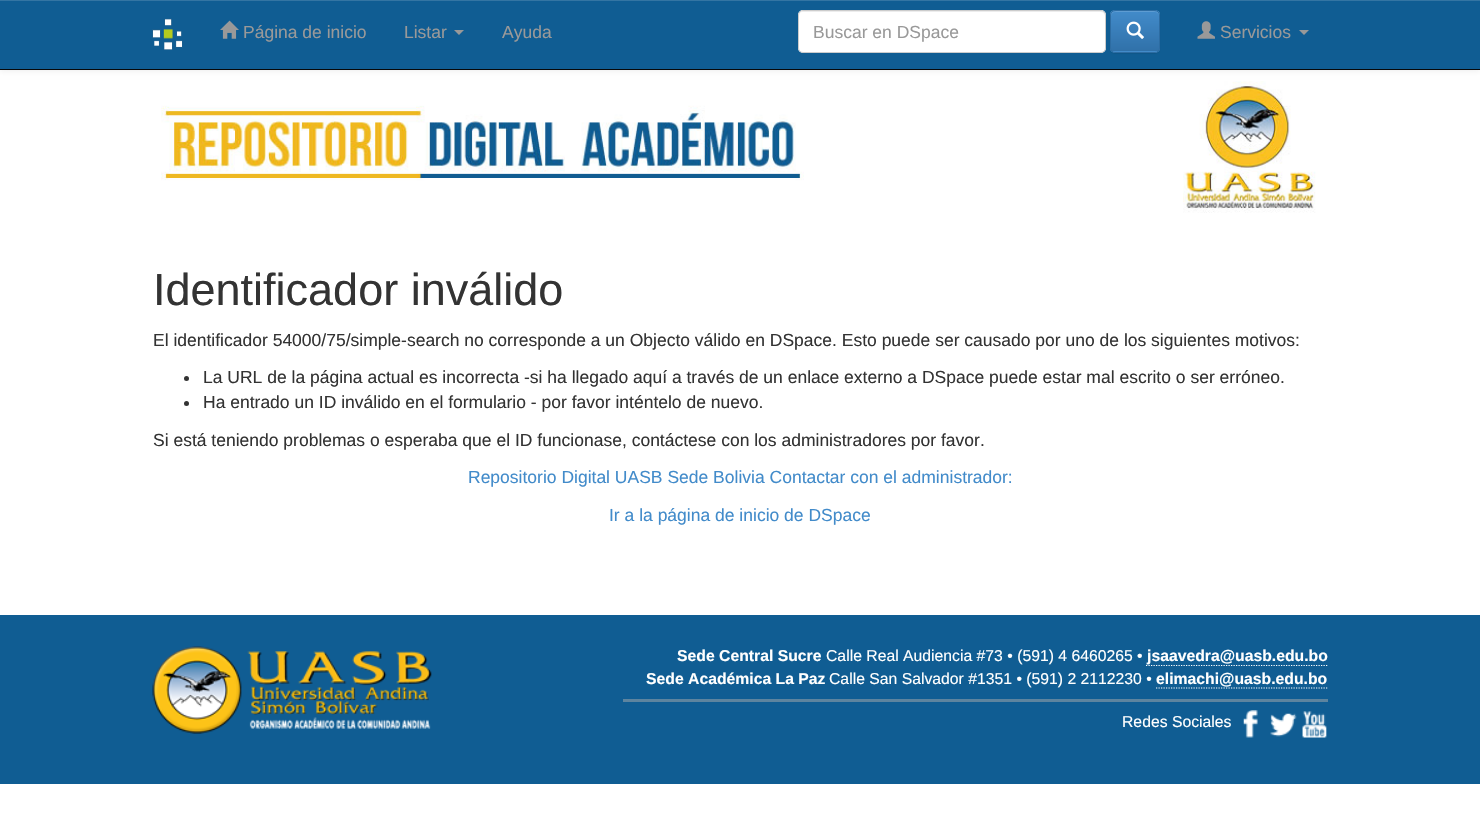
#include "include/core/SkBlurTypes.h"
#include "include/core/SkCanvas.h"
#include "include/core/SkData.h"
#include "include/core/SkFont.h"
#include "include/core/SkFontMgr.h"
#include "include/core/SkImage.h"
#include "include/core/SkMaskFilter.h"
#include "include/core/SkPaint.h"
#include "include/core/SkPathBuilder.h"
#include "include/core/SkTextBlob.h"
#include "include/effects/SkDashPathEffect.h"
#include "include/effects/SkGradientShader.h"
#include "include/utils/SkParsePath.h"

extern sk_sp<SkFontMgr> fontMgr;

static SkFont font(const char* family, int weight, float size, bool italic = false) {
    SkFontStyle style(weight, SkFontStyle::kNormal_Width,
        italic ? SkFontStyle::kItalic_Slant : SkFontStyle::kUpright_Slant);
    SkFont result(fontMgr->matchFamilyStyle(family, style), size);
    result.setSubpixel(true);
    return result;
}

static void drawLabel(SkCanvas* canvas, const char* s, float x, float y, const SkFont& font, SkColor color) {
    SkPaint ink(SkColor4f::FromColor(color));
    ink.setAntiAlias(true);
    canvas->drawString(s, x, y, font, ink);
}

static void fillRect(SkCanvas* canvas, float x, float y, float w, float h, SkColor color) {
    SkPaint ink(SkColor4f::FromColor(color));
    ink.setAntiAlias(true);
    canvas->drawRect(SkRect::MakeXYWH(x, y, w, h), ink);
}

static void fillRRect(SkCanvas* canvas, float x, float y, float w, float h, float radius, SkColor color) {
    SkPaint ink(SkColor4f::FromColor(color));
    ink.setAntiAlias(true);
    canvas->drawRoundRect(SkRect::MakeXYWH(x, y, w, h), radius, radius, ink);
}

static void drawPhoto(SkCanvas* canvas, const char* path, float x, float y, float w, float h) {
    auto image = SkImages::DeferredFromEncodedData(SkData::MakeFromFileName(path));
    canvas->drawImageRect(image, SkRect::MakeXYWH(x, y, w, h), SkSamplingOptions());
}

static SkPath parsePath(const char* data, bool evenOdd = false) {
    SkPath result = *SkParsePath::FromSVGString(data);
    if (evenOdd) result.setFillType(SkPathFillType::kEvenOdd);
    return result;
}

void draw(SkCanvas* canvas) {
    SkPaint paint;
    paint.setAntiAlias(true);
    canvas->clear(0xFFFFFFFF);
    paint.setColor(0x12000000);
    paint.setMaskFilter(SkMaskFilter::MakeBlur(kNormal_SkBlurStyle, 3));
    canvas->drawRect(SkRect::MakeXYWH(0, 1, 1480, 70), paint);
    paint.setMaskFilter(nullptr);
    fillRect(canvas, 0, 1, 1480, 68, 0xFF105D93);
    fillRect(canvas, 0, 0, 1480, 1, 0xFF3475A3);
    fillRect(canvas, 0, 69, 1480, 1, 0xFF080808);
    drawPhoto(canvas, "assets/img1.png", 152, 18, 31, 32);
    drawPhoto(canvas, "assets/img2.png", 220, 20, 19, 19);
    SkFont font1 = font("Liberation Sans", 400, 17.5f);
    drawLabel(canvas, "Página de inicio", 243, 38, font1, 0xFF999999);
    drawLabel(canvas, "Listar", 404, 38, font1, 0xFF999999);
    paint.setColor(0xFF999999);
    canvas->drawPath(parsePath("M454 30H464L459 35Z"), paint);
    drawLabel(canvas, "Ayuda", 502, 38, font1, 0xFF999999);
    fillRRect(canvas, 798, 10, 308, 43, 5, 0xFFFFFFFF);
    paint.setColor(0xFFECECEC);
    canvas->drawPath(parsePath("M802 12H1101C1103 12 1105 14 1105 16C1105 13 1104 11 1101 11H803L800 12C799 13 799 15 799 16C799 14 800 12 802 12Z"), paint);
    paint.setStroke(true);
    paint.setStrokeWidth(1);
    paint.setColor(0xFFCCCCCC);
    canvas->drawRoundRect(SkRect::MakeXYWH(798.5f, 10.5f, 307, 42), 4.5f, 4.5f, paint);
    drawLabel(canvas, "Buscar en DSpace", 813, 38, font1, 0xFF999999);
    paint.setStroke(false);
    paint.setColor(0x12000000);
    paint.setMaskFilter(SkMaskFilter::MakeBlur(kNormal_SkBlurStyle, 0.5f));
    canvas->drawRoundRect(SkRect::MakeXYWH(1110, 11, 50, 43), 5, 5, paint);
    paint.setMaskFilter(nullptr);
    fillRRect(canvas, 1110, 10, 50, 43, 5, 0xFF428BCA);
    canvas->save();
    canvas->clipPath(parsePath("M1115 10H1155C1158 10 1160 12 1160 15V48C1160 51 1158 53 1155 53H1115C1112 53 1110 51 1110 48V15C1110 12 1112 10 1115 10Z"), true);
    {
        const SkColor colors[] = {0xFF428BCA, 0xFF3071A9};
        const float stops[] = {0, 1};
        const SkPoint ends[] = {{1135, 11}, {1135, 51}};
        paint.setShader(SkGradientShader::MakeLinear(ends, colors, stops, 2, SkTileMode::kClamp));
        paint.setAlpha(255);
    }
    canvas->drawRect(SkRect::MakeXYWH(1110, 11, 50, 40), paint);
    canvas->restore();
    paint.setShader(nullptr);
    paint.setColor(0xFF5E9CD2);
    canvas->drawPath(parsePath("M1115 12H1155C1157 12 1159 14 1159 16C1159 10 1153 11 1148 11H1122C1117 11 1111 10 1111 16C1111 14 1113 12 1115 12Z"), paint);
    paint.setStroke(true);
    paint.setColor(0xFF2D6CA2);
    canvas->drawRoundRect(SkRect::MakeXYWH(1110.5f, 10.5f, 49, 42), 4.5f, 4.5f, paint);
    drawPhoto(canvas, "assets/img3.png", 1126, 21, 18, 18);
    drawPhoto(canvas, "assets/img4.png", 1197, 21, 18, 18);
    drawLabel(canvas, "Servicios", 1220, 38, font1, 0xFF999999);
    paint.setStroke(false);
    paint.setColor(0xFF999999);
    canvas->drawPath(parsePath("M1299 30H1309L1304 35Z"), paint);
    drawPhoto(canvas, "assets/img5.png", 161, 81, 1155, 132);
    SkFont font2 = font("Liberation Sans", 400, 45);
    drawLabel(canvas, "Identificador inválido", 153, 305, font2, 0xFF333333);
    drawLabel(canvas, "El identificador 54000/75/simple-search no corresponde a un Objecto válido en DSpace. Esto puede ser causado por uno de los siguientes motivos:", 153, 346, font1, 0xFF333333);
    paint.setColor(0xFF333333);
    canvas->drawCircle(186.5f, 378.5f, 2.5f, paint);
    drawLabel(canvas, "La URL de la página actual es incorrecta -si ha llegado aquí a través de un enlace externo a DSpace puede estar mal escrito o ser erróneo.", 203, 383, font1, 0xFF333333);
    canvas->drawCircle(186.5f, 403.5f, 2.5f, paint);
    drawLabel(canvas, "Ha entrado un ID inválido en el formulario - por favor inténtelo de nuevo.", 203, 408, font1, 0xFF333333);
    drawLabel(canvas, "Si está teniendo problemas o esperaba que el ID funcionase, contáctese con los administradores por favor.", 153, 446, font1, 0xFF333333);
    drawLabel(canvas, "Repositorio Digital UASB Sede Bolivia Contactar con el administrador:", 468, 483, font1, 0xFF428BCA);
    drawLabel(canvas, "Ir a la página de inicio de DSpace", 609, 521, font1, 0xFF428BCA);
    fillRect(canvas, 0, 615, 1480, 169, 0xFF105D93);
    drawPhoto(canvas, "assets/img6.png", 152, 646, 280, 88);
    SkFont font3 = font("Liberation Sans", 700, 15.75f);
    drawLabel(canvas, "Sede Central Sucre", 677, 661, font3, 0xFFFFFFFF);
    SkFont font4 = font("Liberation Sans", 400, 15.75f);
    drawLabel(canvas, "Calle Real Audiencia #73 • (591) 4 6460265 •", 826, 661, font4, 0xFFFFFFFF);
    paint.setStroke(true);
    paint.setStrokeWidth(1.2f);
    paint.setColor(0xFFFFFFFF);
    paint.setPathEffect(SkDashPathEffect::Make({{1.25f, 1.25f}}, 0));
    canvas->drawPath(parsePath("M1146 665.5H1327.5"), paint);
    paint.setPathEffect(nullptr);
    drawLabel(canvas, "jsaavedra@uasb.edu.bo", 1147, 661, font3, 0xFFFFFFFF);
    drawLabel(canvas, "Sede Académica La Paz", 646, 684, font3, 0xFFFFFFFF);
    drawLabel(canvas, "Calle San Salvador #1351 • (591) 2 2112230 •", 829, 684, font4, 0xFFFFFFFF);
    drawLabel(canvas, "elimachi@uasb.edu.bo", 1156, 684, font3, 0xFFFFFFFF);
    paint.setPathEffect(SkDashPathEffect::Make({{1.25f, 1.25f}}, 0));
    canvas->drawPath(parsePath("M1156 688H1327.5"), paint);
    paint.setPathEffect(nullptr);
    fillRect(canvas, 623, 699, 705, 3, 0xFF5D849F);
    drawLabel(canvas, "Redes Sociales", 1122, 727, font4, 0xFFFFFFFF);
    drawPhoto(canvas, "assets/img7.png", 1243, 710, 15, 28);
    drawPhoto(canvas, "assets/img8.png", 1270, 713, 27, 24);
    drawPhoto(canvas, "assets/img9.png", 1302, 711, 25, 27);
}
